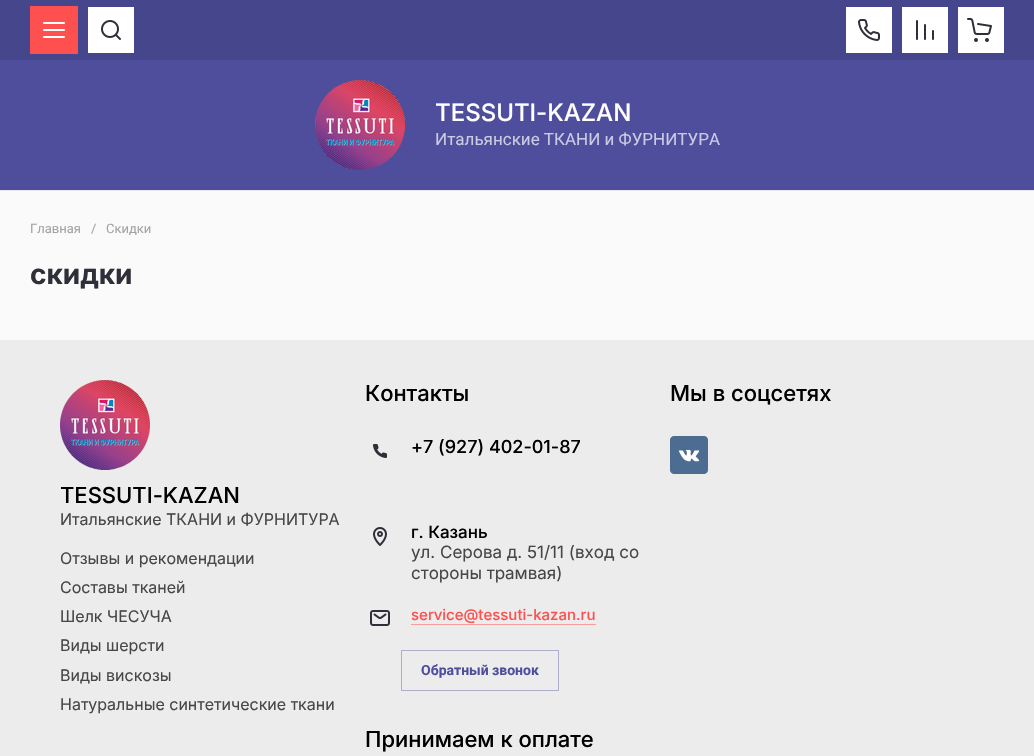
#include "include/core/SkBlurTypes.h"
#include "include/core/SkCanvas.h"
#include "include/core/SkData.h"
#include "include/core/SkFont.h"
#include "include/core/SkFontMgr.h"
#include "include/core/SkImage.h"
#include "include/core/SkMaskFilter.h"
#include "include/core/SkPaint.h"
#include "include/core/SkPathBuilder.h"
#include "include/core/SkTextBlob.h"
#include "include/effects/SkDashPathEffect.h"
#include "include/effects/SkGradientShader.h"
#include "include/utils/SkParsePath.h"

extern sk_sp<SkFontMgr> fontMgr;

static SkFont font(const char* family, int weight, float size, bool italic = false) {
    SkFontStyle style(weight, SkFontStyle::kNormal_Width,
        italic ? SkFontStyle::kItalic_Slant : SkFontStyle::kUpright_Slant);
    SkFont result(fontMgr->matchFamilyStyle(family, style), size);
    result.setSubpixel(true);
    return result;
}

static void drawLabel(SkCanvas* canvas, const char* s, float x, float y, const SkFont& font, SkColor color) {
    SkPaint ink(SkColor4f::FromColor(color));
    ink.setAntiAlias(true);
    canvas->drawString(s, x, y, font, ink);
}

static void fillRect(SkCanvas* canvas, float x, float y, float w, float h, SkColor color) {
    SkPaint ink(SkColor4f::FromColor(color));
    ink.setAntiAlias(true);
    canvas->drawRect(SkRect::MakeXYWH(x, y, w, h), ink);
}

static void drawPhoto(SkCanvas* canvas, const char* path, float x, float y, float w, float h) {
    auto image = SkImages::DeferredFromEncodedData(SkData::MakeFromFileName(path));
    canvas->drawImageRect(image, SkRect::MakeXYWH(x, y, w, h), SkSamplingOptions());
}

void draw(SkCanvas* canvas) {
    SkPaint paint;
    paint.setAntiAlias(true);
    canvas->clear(0xFFFAFAFA);
    fillRect(canvas, 0, 190, 1034, 1, 0xFFE6E7ED);
    fillRect(canvas, 0, 60, 1034, 130, 0xFF4E4E9D);
    fillRect(canvas, 0, 0, 1034, 60, 0xFF46468D);
    fillRect(canvas, 30, 6, 48, 48, 0xFFFF5050);
    drawPhoto(canvas, "assets/img1.png", 43, 22, 22, 16);
    fillRect(canvas, 88, 7, 46, 46, 0xFFFFFFFF);
    drawPhoto(canvas, "assets/img2.png", 101, 20, 20, 20);
    fillRect(canvas, 846, 7, 46, 46, 0xFFFFFFFF);
    drawPhoto(canvas, "assets/img3.png", 858, 19, 22, 22);
    fillRect(canvas, 902, 7, 46, 46, 0xFFFFFFFF);
    drawPhoto(canvas, "assets/img4.png", 916, 20, 18, 20);
    fillRect(canvas, 958, 7, 46, 46, 0xFFFFFFFF);
    drawPhoto(canvas, "assets/img5.png", 967, 18, 25, 24);
    drawPhoto(canvas, "assets/img6.png", 315, 80, 90, 90);
    SkFont font1 = font("Inter", 500, 24);
    drawLabel(canvas, "TESSUTI-KAZAN", 435, 121, font1, 0xFFFFFFFF);
    SkFont font2 = font("Roboto", 400, 17);
    drawLabel(canvas, "Итальянские ТКАНИ и ФУРНИТУРА", 435, 145, font2, 0xFFCACAE2);
    SkFont font3 = font("Roboto", 400, 13);
    drawLabel(canvas, "Главная", 30, 233, font3, 0xFFA3A4A7);
    drawLabel(canvas, "/", 91, 233, font3, 0xFFA3A4A7);
    drawLabel(canvas, "Скидки", 106, 233, font3, 0xFFA3A4A7);
    SkFont font4 = font("Inter", 700, 28);
    drawLabel(canvas, "скидки", 30, 284, font4, 0xFF2E2F38);
    fillRect(canvas, 0, 340, 1034, 416, 0xFFECECEC);
    drawPhoto(canvas, "assets/img7.png", 60, 380, 90, 90);
    SkFont font5 = font("Inter", 500, 22);
    drawLabel(canvas, "TESSUTI-KAZAN", 60, 503, font5, 0xFF000000);
    SkFont font6 = font("Inter", 400, 16);
    drawLabel(canvas, "Итальянские ТКАНИ и ФУРНИТУРА", 60, 525, font6, 0xFF474747);
    drawLabel(canvas, "Отзывы и рекомендации", 60, 564, font6, 0xFF474747);
    drawLabel(canvas, "Составы тканей", 60, 593, font6, 0xFF474747);
    drawLabel(canvas, "Шелк ЧЕСУЧА", 60, 622, font6, 0xFF474747);
    drawLabel(canvas, "Виды шерсти", 60, 651, font6, 0xFF474747);
    drawLabel(canvas, "Виды вискозы", 60, 681, font6, 0xFF474747);
    drawLabel(canvas, "Натуральные синтетические ткани", 60, 710, font6, 0xFF474747);
    drawLabel(canvas, "Контакты", 365, 401, font5, 0xFF000000);
    drawPhoto(canvas, "assets/img8.png", 373, 444, 14, 14);
    SkFont font7 = font("Inter", 500, 18);
    drawLabel(canvas, "+7 (927) 402-01-87", 411, 453, font7, 0xFF000000);
    drawPhoto(canvas, "assets/img9.png", 373, 527, 14, 19);
    SkFont font8 = font("Inter", 500, 17);
    drawLabel(canvas, "г. Казань", 411, 538, font8, 0xFF000000);
    SkFont font9 = font("Inter", 400, 17);
    drawLabel(canvas, "ул. Серова д. 51/11 (вход со", 411, 558, font9, 0xFF474747);
    drawLabel(canvas, "стороны трамвая)", 411, 579, font9, 0xFF474747);
    drawPhoto(canvas, "assets/img10.png", 370, 610, 20, 16);
    fillRect(canvas, 411, 624, 185, 1, 0xFFF69E9E);
    SkFont font10 = font("Inter", 500, 15);
    drawLabel(canvas, "service@tessuti-kazan.ru", 411, 620, font10, 0xFFFF5050);
    paint.setStroke(true);
    paint.setStrokeWidth(1);
    paint.setColor(0xFFADADCC);
    canvas->drawRect(SkRect::MakeXYWH(401.5f, 650.5f, 157, 40), paint);
    SkFont font11 = font("Roboto", 700, 14);
    drawLabel(canvas, "Обратный звонок", 421, 675, font11, 0xFF4E4E9D);
    drawLabel(canvas, "Мы в соцсетях", 670, 401, font5, 0xFF000000);
    drawPhoto(canvas, "assets/img11.png", 670, 436, 38, 38);
    drawLabel(canvas, "Принимаем к оплате", 365, 747, font5, 0xFF000000);
}
